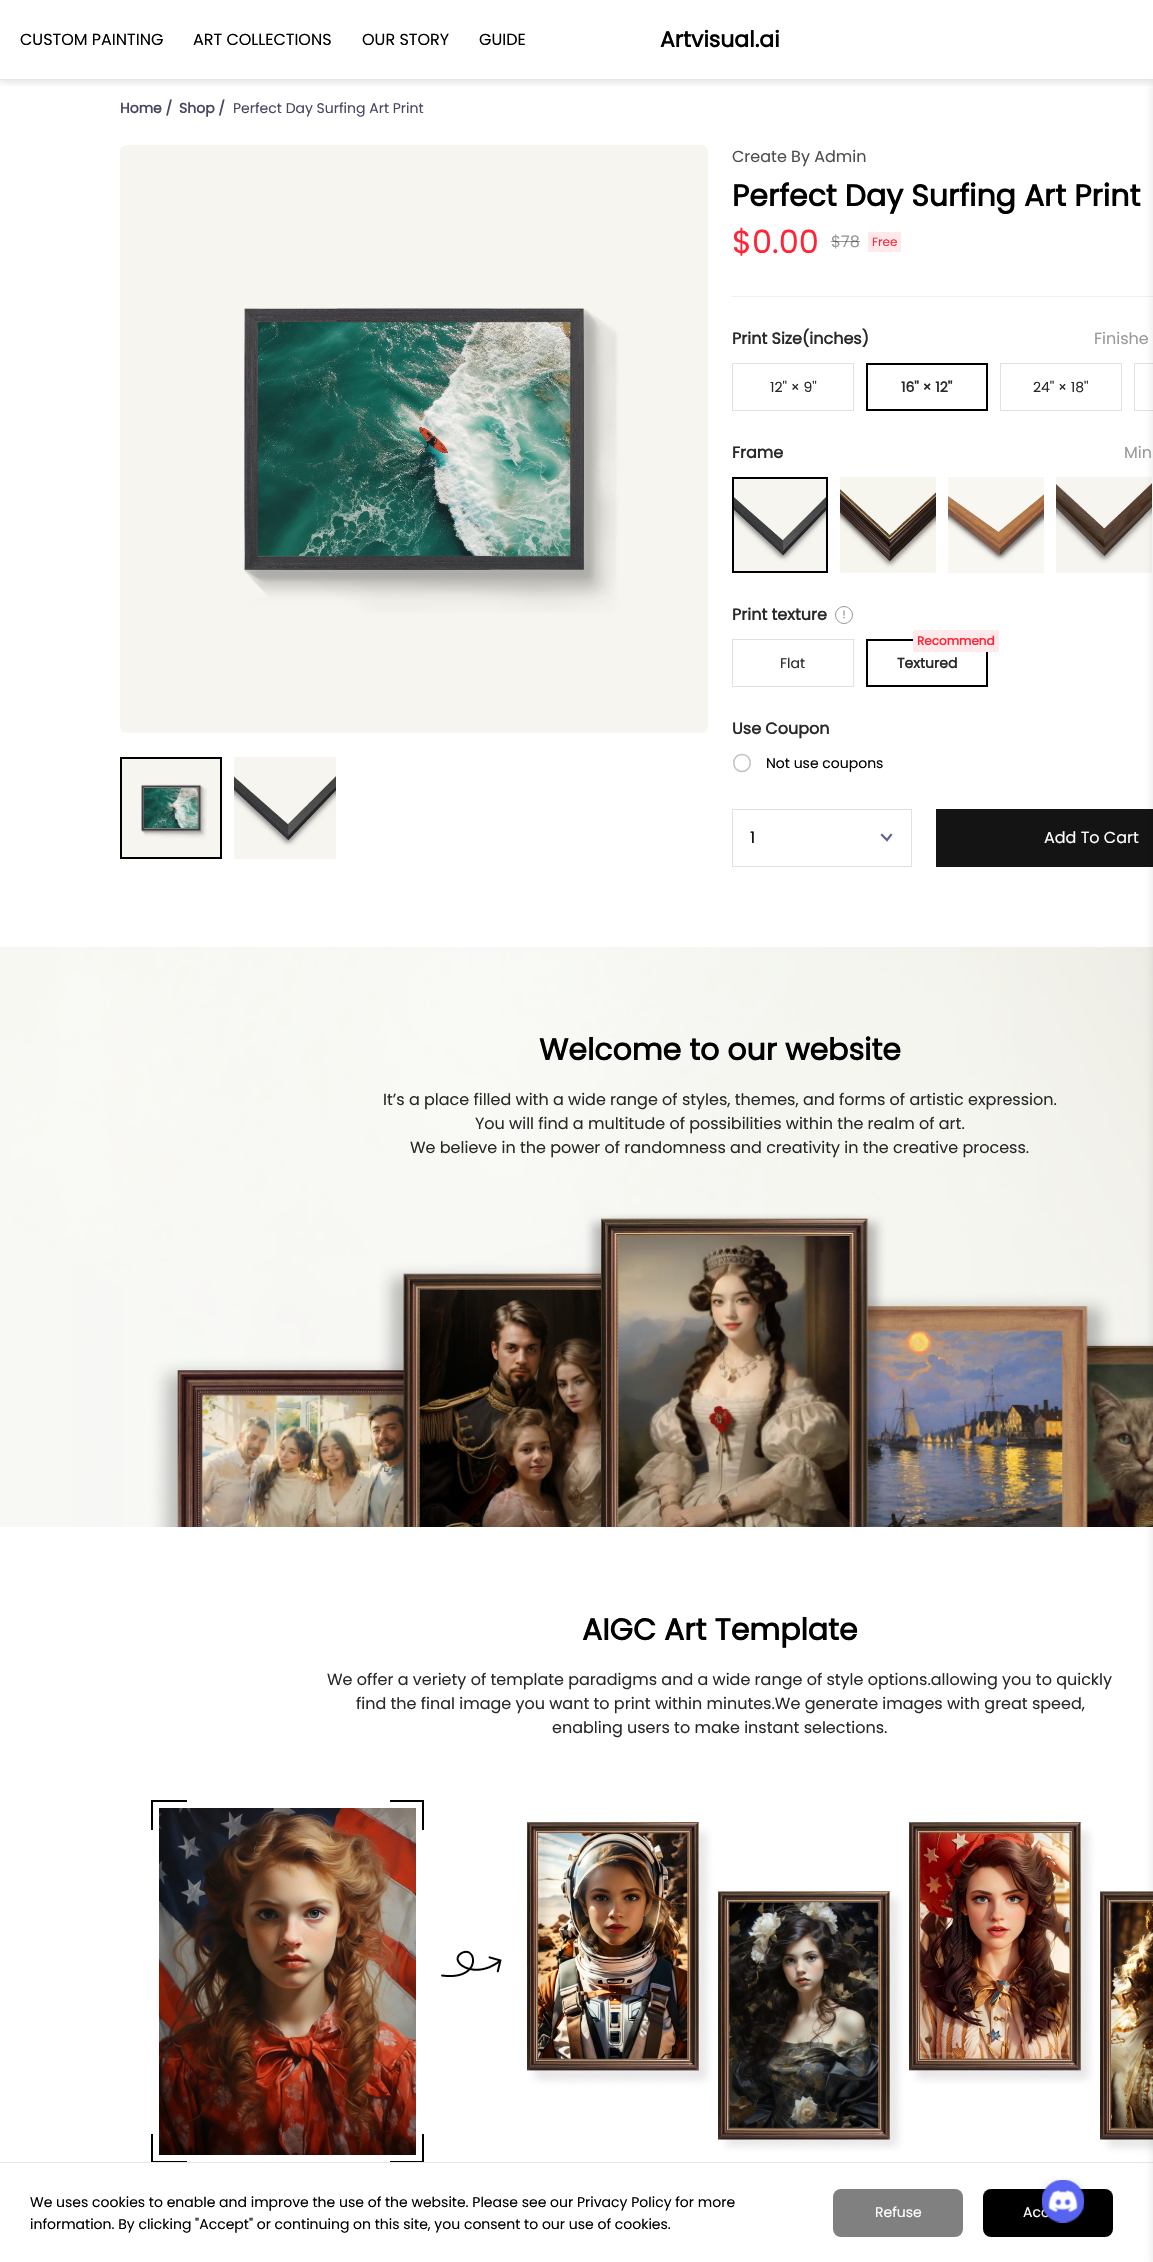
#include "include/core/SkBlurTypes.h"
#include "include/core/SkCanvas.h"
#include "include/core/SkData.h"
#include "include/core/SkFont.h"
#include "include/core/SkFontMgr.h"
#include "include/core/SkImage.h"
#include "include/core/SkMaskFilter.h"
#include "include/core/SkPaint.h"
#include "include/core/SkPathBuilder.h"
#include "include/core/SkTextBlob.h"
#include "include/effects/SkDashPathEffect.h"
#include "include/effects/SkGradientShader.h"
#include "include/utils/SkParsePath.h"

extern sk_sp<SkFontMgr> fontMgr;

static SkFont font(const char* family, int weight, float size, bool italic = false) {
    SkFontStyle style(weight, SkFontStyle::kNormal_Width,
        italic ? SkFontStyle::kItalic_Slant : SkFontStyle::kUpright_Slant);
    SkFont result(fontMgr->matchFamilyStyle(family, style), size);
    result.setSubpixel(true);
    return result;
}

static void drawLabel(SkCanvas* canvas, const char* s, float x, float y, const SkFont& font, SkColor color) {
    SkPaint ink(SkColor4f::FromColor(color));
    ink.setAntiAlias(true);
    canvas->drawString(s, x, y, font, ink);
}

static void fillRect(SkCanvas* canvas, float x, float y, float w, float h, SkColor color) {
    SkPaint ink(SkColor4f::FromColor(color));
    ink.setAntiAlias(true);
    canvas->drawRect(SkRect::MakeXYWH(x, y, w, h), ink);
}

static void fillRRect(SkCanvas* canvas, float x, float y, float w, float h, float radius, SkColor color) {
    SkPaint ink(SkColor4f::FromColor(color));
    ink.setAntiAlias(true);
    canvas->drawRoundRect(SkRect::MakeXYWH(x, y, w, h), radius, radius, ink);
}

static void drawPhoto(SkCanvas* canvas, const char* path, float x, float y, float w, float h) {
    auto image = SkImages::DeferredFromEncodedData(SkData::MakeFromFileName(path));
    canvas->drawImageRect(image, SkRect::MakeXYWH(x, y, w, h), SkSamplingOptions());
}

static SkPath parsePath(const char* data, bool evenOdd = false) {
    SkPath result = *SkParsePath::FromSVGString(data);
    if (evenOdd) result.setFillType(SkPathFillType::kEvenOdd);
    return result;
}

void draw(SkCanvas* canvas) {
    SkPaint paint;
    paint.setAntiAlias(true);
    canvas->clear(0xFFFFFFFF);
    canvas->save();
    canvas->clipRect(SkRect::MakeXYWH(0, 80, 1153, 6));
    paint.setColor(0x1F000000);
    paint.setMaskFilter(SkMaskFilter::MakeBlur(kNormal_SkBlurStyle, 4));
    canvas->drawRect(SkRect::MakeXYWH(0, 2, 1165, 80), paint);
    paint.setMaskFilter(nullptr);
    canvas->restore();
    fillRect(canvas, 0, 79, 1153, 1, 0xFFE6E6E6);
    SkFont font1 = font("Poppins", 400, 16);
    drawLabel(canvas, "CUSTOM PAINTING", 20, 45, font1, 0xFF000000);
    drawLabel(canvas, "ART COLLECTIONS", 193, 45, font1, 0xFF000000);
    drawLabel(canvas, "OUR STORY", 362, 45, font1, 0xFF000000);
    drawLabel(canvas, "GUIDE", 479, 45, font1, 0xFF000000);
    SkFont font2 = font("Poppins", 700, 22);
    drawLabel(canvas, "Artvisual.ai", 660, 47, font2, 0xFF000000);
    fillRect(canvas, 732, 296, 421, 1, 0xFFF0F0F0);
    paint.setStroke(true);
    paint.setStrokeWidth(1);
    paint.setColor(0xFFE0E0E0);
    canvas->drawRect(SkRect::MakeXYWH(1134.5f, 363.5f, 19, 47), paint);
    drawPhoto(canvas, "assets/img9.png", 1056, 477, 96, 96);
    fillRect(canvas, 936, 809, 217, 58, 0xFF141414);
    drawPhoto(canvas, "assets/img11.png", 0, 947, 1153, 580);
    drawPhoto(canvas, "assets/img12.png", 151, 1800, 1002, 362);
    fillRect(canvas, 0, 2162, 1153, 1, 0xFFE6E6E6);
    paint.setStroke(false);
    paint.setColor(0x1A000000);
    paint.setMaskFilter(SkMaskFilter::MakeBlur(kNormal_SkBlurStyle, 4));
    canvas->drawRect(SkRect::MakeXYWH(1153, 84, 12, 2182), paint);
    paint.setMaskFilter(nullptr);
    SkFont font3 = font("Poppins", 700, 14);
    drawLabel(canvas, "Home /", 120, 113, font3, 0xFF474762);
    drawLabel(canvas, "Shop /", 179, 113, font3, 0xFF474762);
    SkFont font4 = font("Poppins", 400, 14);
    drawLabel(canvas, "Perfect Day Surfing Art Print", 233, 113, font4, 0xFF474762);
    drawPhoto(canvas, "assets/img2.png", 257, 322, 314, 234);
    drawPhoto(canvas, "assets/img1.png", 120, 145, 588, 588);
    drawPhoto(canvas, "assets/img4.png", 144, 788, 54, 40);
    drawPhoto(canvas, "assets/img3.png", 122, 759, 98, 98);
    paint.setStroke(true);
    paint.setStrokeWidth(2);
    paint.setColor(0xFF000000);
    canvas->drawRect(SkRect::MakeXYWH(121, 758, 100, 100), paint);
    drawPhoto(canvas, "assets/img5.png", 234, 757, 102, 102);
    drawLabel(canvas, "Create By Admin", 732, 162, font1, 0xFF4D4D4D);
    SkFont font5 = font("Poppins", 700, 30);
    drawLabel(canvas, "Perfect Day Surfing Art Print", 732, 206, font5, 0xFF000000);
    SkFont font6 = font("Poppins", 400, 32);
    drawLabel(canvas, "$0.00", 732, 253, font6, 0xFFFF2436);
    drawLabel(canvas, "$78", 831, 247, font1, 0xFF999999);
    fillRect(canvas, 831, 241, 29, 1, 0x66000000);
    fillRect(canvas, 868, 232, 33, 20, 0xFFFFE9EB);
    SkFont font7 = font("Poppins", 400, 12);
    drawLabel(canvas, "Free", 872, 246, font7, 0xFFFF2436);
    SkFont font8 = font("Poppins", 700, 16);
    drawLabel(canvas, "Print Size(inches)", 732, 344, font8, 0xFF292929);
    drawLabel(canvas, "Finishe", 1094, 344, font1, 0xFF999999);
    paint.setStrokeWidth(1);
    paint.setColor(0xFFE0E0E0);
    canvas->drawRect(SkRect::MakeXYWH(732.5f, 363.5f, 121, 47), paint);
    drawLabel(canvas, "12'' × 9''", 770, 392, font4, 0xFF292929);
    paint.setStrokeWidth(2);
    paint.setColor(0xFF000000);
    canvas->drawRect(SkRect::MakeXYWH(867, 364, 120, 46), paint);
    drawLabel(canvas, "16'' × 12''", 901, 392, font3, 0xFF292929);
    paint.setStrokeWidth(1);
    paint.setColor(0xFFE0E0E0);
    canvas->drawRect(SkRect::MakeXYWH(1000.5f, 363.5f, 121, 47), paint);
    drawLabel(canvas, "24'' × 18''", 1033, 392, font4, 0xFF292929);
    drawLabel(canvas, "Frame", 732, 458, font8, 0xFF292929);
    drawLabel(canvas, "Min", 1124, 458, font1, 0xFF999999);
    drawPhoto(canvas, "assets/img6.png", 734, 479, 92, 92);
    paint.setStrokeWidth(2);
    paint.setColor(0xFF000000);
    canvas->drawRect(SkRect::MakeXYWH(733, 478, 94, 94), paint);
    drawPhoto(canvas, "assets/img7.png", 840, 477, 96, 96);
    drawPhoto(canvas, "assets/img8.png", 948, 477, 96, 96);
    drawLabel(canvas, "Print texture", 732, 620, font8, 0xFF292929);
    drawPhoto(canvas, "assets/img10.png", 843, 610, 2, 9);
    paint.setStrokeWidth(1);
    paint.setColor(0xFF999999);
    canvas->drawCircle(844, 615, 8.5f, paint);
    paint.setColor(0xFFE0E0E0);
    canvas->drawRect(SkRect::MakeXYWH(732.5f, 639.5f, 121, 47), paint);
    drawLabel(canvas, "Flat", 780, 668, font4, 0xFF292929);
    paint.setStrokeWidth(2);
    paint.setColor(0xFF000000);
    canvas->drawRect(SkRect::MakeXYWH(867, 640, 120, 46), paint);
    fillRRect(canvas, 913, 630, 86, 22, 2, 0xFFFFE9EB);
    SkFont font9 = font("Poppins", 700, 12);
    drawLabel(canvas, "Recommend", 917, 645, font9, 0xFFFF2436);
    drawLabel(canvas, "Textured", 897, 668, font3, 0xFF292929);
    drawLabel(canvas, "Use Coupon", 732, 734, font8, 0xFF292929);
    paint.setStrokeWidth(1.5f);
    paint.setStrokeJoin(SkPaint::kRound_Join);
    paint.setColor(0xFFC2C2C2);
    canvas->drawPath(parsePath("M742 771.5C753 771.5 753 754.5 742 754.5C731 754.5 731 771.5 742 771.5Z"), paint);
    drawLabel(canvas, "Not use coupons", 766, 768, font4, 0xFF000000);
    paint.setStrokeWidth(1);
    paint.setStrokeJoin(SkPaint::kMiter_Join);
    paint.setColor(0xFFE0E0E0);
    canvas->drawRect(SkRect::MakeXYWH(732.5f, 809.5f, 179, 57), paint);
    drawLabel(canvas, "1", 750, 843, font1, 0xFF000000);
    paint.setStrokeWidth(2.2f);
    paint.setStrokeCap(SkPaint::kSquare_Cap);
    paint.setColor(0xFF5F6490);
    canvas->drawPath(parsePath("M882 835L887 840L891 835"), paint);
    drawLabel(canvas, "Add To Cart", 1044, 843, font1, 0xFFFFFFFF);
    drawLabel(canvas, "Welcome to our website", 539, 1060, font5, 0xFF000000);
    drawLabel(canvas, "It’s a place filled with a wide range of styles, themes, and forms of artistic expression.", 383, 1105, font1, 0xFF292929);
    drawLabel(canvas, "You will find a multitude of possibilities within the realm of art.", 475, 1129, font1, 0xFF292929);
    drawLabel(canvas, "We believe in the power of randomness and creativity in the creative process.", 410, 1153, font1, 0xFF292929);
    drawLabel(canvas, "AIGC Art Template", 582, 1640, font5, 0xFF000000);
    drawLabel(canvas, "We offer a veriety of template paradigms and a wide range of style options.allowing you to quickly", 327, 1685, font1, 0xFF292929);
    drawLabel(canvas, "find the final image you want to print within minutes.We generate images with great speed,", 356, 1709, font1, 0xFF292929);
    drawLabel(canvas, "enabling users to make instant selections.", 552, 1733, font1, 0xFF292929);
    fillRRect(canvas, 983, 2189, 130, 48, 8, 0xFF000000);
    drawLabel(canvas, "Acc", 1023, 2217, font4, 0xFFFFFFFF);
    drawPhoto(canvas, "assets/img13.png", 1038, 2178, 48, 45);
    drawLabel(canvas, "We uses cookies to enable and improve the use of the website. Please see our Privacy Policy for more", 30, 2207, font4, 0xFF000000);
    drawLabel(canvas, "information. By clicking \"Accept\" or continuing on this site, you consent to our use of cookies.", 30, 2229, font4, 0xFF000000);
    fillRRect(canvas, 833, 2189, 130, 48, 8, 0xFF808080);
    drawLabel(canvas, "Refuse", 875, 2217, font4, 0xFFFFFFFF);
}
